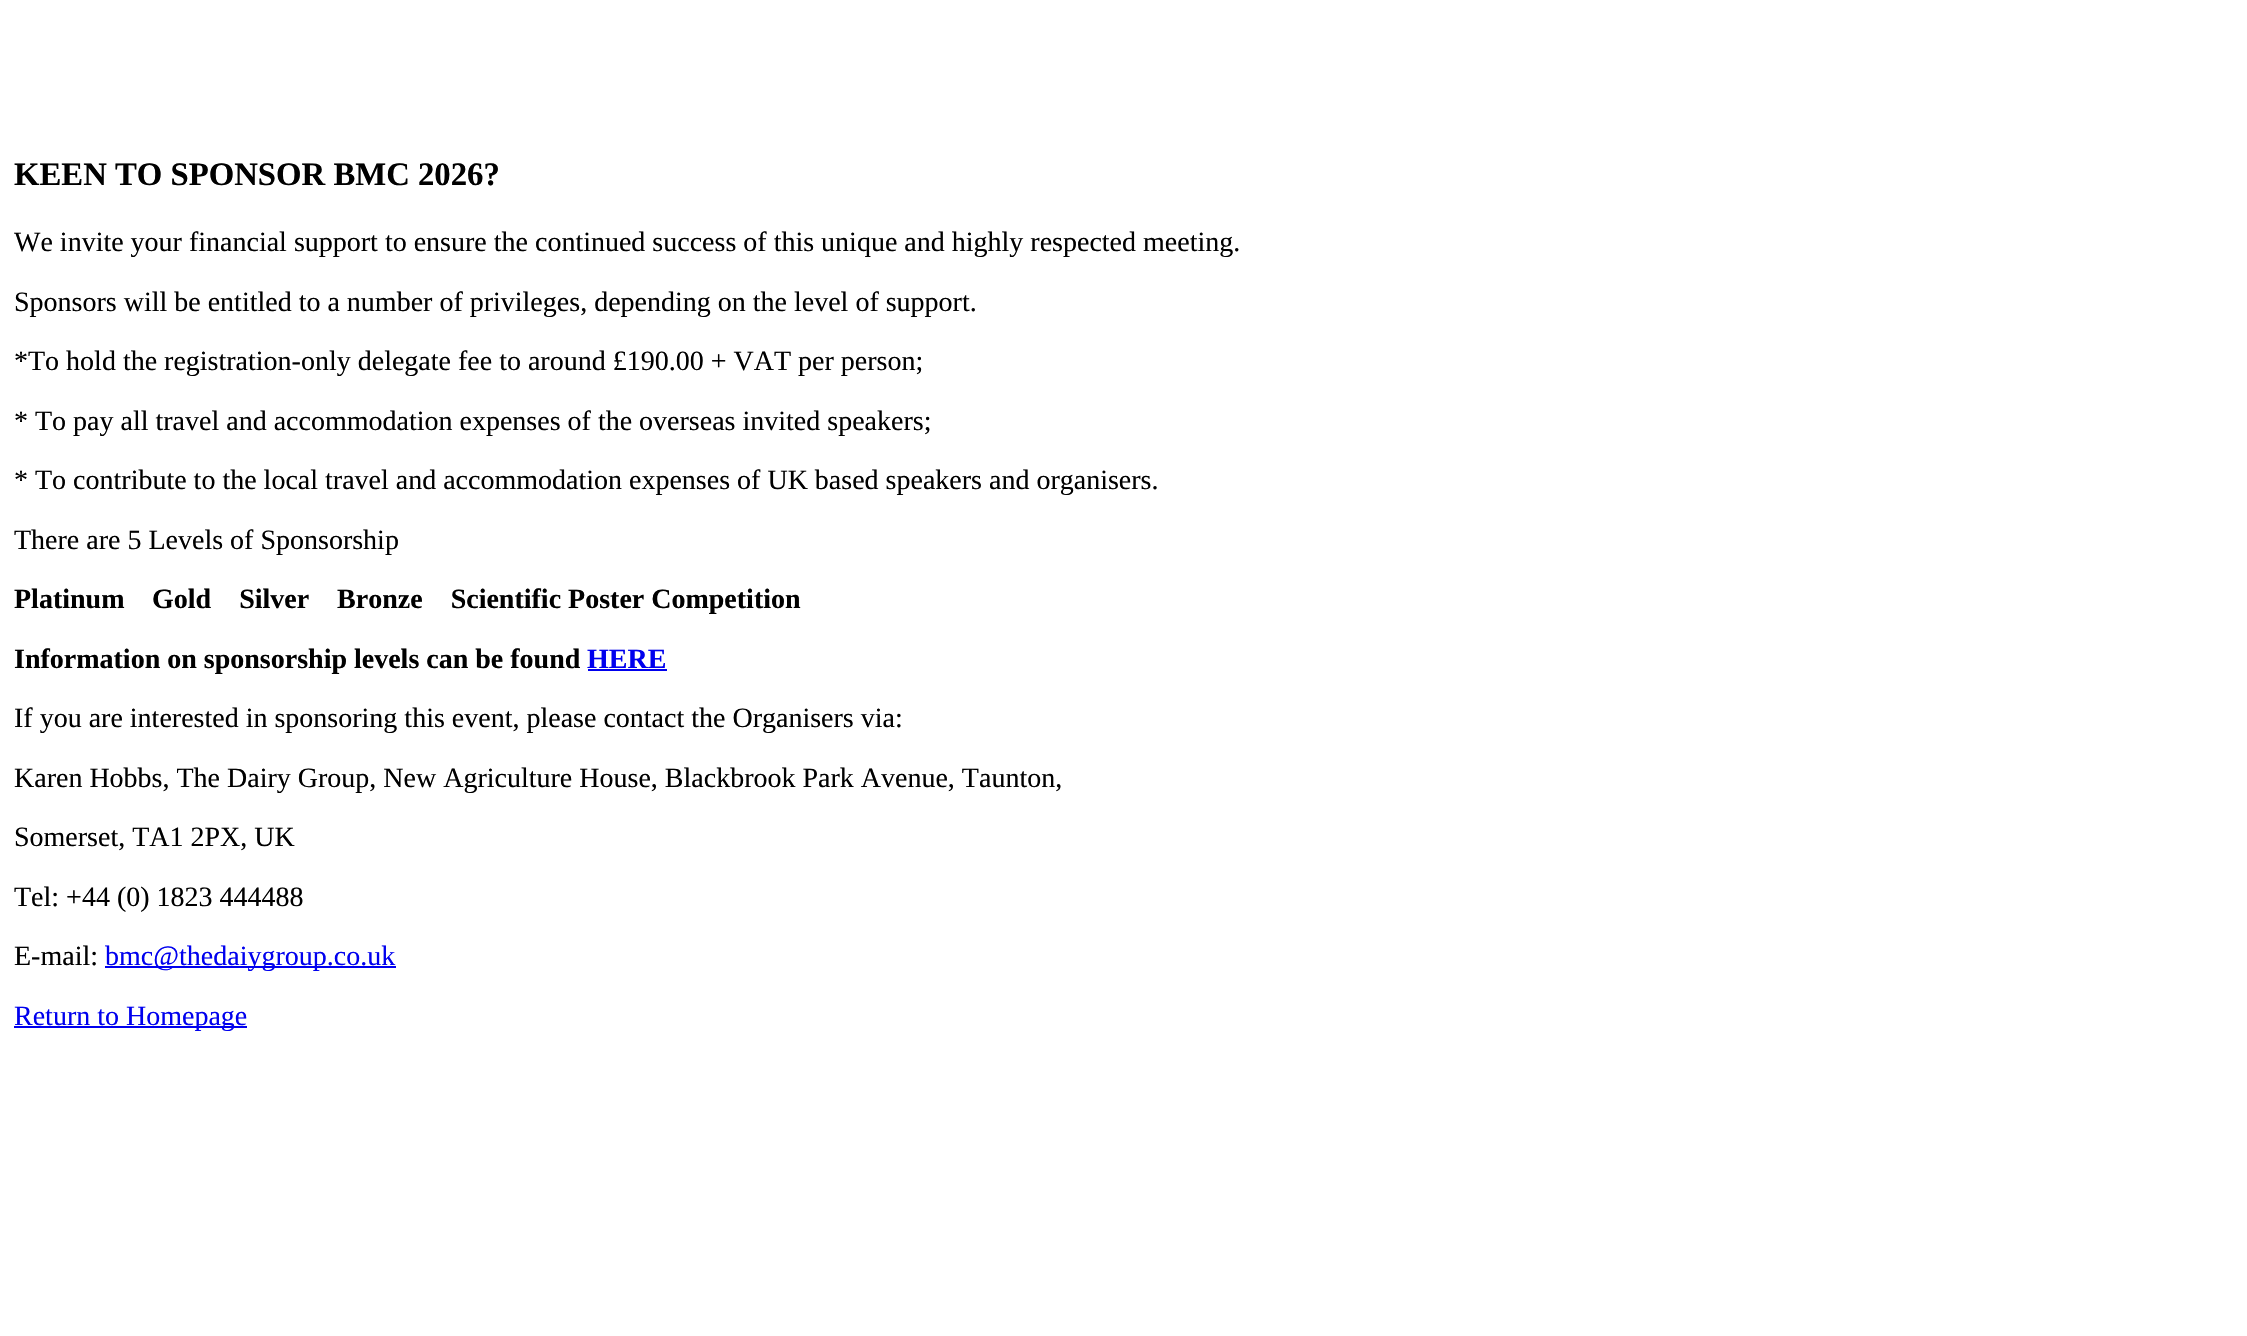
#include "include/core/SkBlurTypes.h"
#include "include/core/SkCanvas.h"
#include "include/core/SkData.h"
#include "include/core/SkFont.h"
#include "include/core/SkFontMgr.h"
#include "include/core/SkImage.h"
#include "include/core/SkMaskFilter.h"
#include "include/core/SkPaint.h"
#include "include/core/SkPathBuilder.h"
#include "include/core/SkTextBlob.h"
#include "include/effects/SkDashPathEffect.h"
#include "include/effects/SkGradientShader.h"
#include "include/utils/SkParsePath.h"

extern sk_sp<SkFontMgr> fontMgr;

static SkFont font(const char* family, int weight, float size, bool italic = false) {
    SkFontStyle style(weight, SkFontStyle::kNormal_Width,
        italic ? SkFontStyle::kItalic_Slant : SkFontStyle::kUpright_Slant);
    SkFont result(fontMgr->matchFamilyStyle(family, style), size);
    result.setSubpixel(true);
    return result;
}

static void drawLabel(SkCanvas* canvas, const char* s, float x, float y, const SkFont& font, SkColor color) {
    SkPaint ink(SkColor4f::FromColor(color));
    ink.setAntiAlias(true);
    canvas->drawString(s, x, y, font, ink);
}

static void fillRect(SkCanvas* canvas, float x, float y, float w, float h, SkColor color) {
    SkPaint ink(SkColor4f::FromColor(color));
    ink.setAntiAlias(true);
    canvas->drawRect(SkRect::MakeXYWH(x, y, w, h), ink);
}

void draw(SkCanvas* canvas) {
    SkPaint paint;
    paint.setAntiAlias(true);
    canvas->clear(0xFFFFFFFF);
    SkFont font1 = font("Liberation Serif", 700, 32.75f);
    drawLabel(canvas, "KEEN TO SPONSOR BMC 2026?", 14, 185, font1, 0xFF000000);
    SkFont font2 = font("Liberation Serif", 400, 28);
    drawLabel(canvas, "We invite your financial support to ensure the continued success of this unique and highly respected meeting.", 14, 251, font2, 0xFF000000);
    drawLabel(canvas, "Sponsors will be entitled to a number of privileges, depending on the level of support.", 14, 311, font2, 0xFF000000);
    drawLabel(canvas, "*To hold the registration-only delegate fee to around £190.00 + VAT per person;", 14, 370, font2, 0xFF000000);
    drawLabel(canvas, "* To pay all travel and accommodation expenses of the overseas invited speakers;", 14, 430, font2, 0xFF000000);
    drawLabel(canvas, "* To contribute to the local travel and accommodation expenses of UK based speakers and organisers.", 14, 489, font2, 0xFF000000);
    drawLabel(canvas, "There are 5 Levels of Sponsorship", 14, 549, font2, 0xFF000000);
    SkFont font3 = font("Liberation Serif", 700, 28);
    drawLabel(canvas, "Platinum", 14, 608, font3, 0xFF000000);
    drawLabel(canvas, "Gold    Silver    Bronze    Scientific Poster Competition", 152, 608, font3, 0xFF000000);
    drawLabel(canvas, "Information on sponsorship levels can be found", 14, 668, font3, 0xFF000000);
    drawLabel(canvas, "HERE", 587, 668, font3, 0xFF0000EE);
    fillRect(canvas, 588, 669, 79, 2, 0xFF0000EE);
    drawLabel(canvas, "If you are interested in sponsoring this event, please contact the Organisers via:", 14, 727, font2, 0xFF000000);
    drawLabel(canvas, "Karen Hobbs, The Dairy Group, New Agriculture House, Blackbrook Park Avenue, Taunton,", 14, 787, font2, 0xFF000000);
    drawLabel(canvas, "Somerset, TA1 2PX, UK", 14, 846, font2, 0xFF000000);
    drawLabel(canvas, "Tel: +44 (0) 1823 444488", 14, 906, font2, 0xFF000000);
    drawLabel(canvas, "E-mail:", 14, 965, font2, 0xFF000000);
    fillRect(canvas, 105, 966, 291, 2, 0xFF0000EE);
    drawLabel(canvas, "bmc@thedaiygroup.co.uk", 105, 965, font2, 0xFF0000EE);
    fillRect(canvas, 14, 1026, 233, 2, 0xFF0000EE);
    drawLabel(canvas, "Return to Homepage", 14, 1025, font2, 0xFF0000EE);
}
